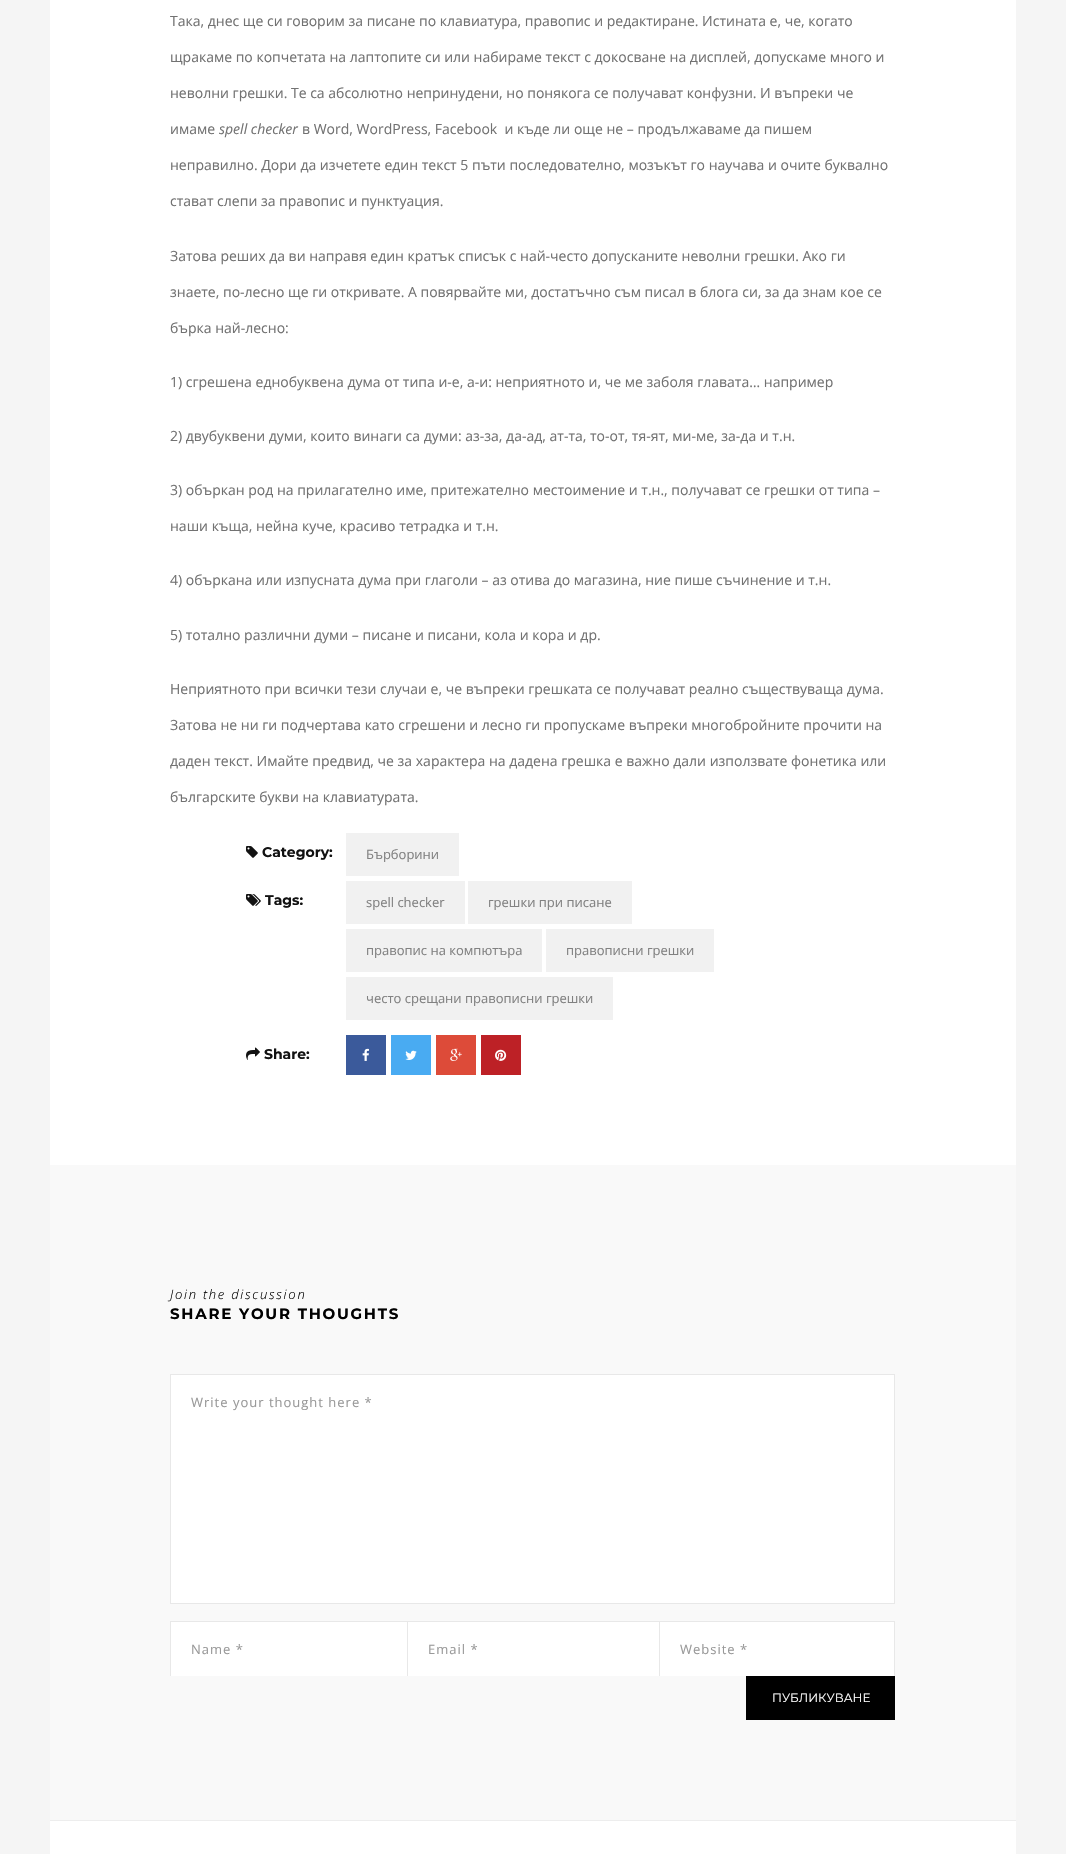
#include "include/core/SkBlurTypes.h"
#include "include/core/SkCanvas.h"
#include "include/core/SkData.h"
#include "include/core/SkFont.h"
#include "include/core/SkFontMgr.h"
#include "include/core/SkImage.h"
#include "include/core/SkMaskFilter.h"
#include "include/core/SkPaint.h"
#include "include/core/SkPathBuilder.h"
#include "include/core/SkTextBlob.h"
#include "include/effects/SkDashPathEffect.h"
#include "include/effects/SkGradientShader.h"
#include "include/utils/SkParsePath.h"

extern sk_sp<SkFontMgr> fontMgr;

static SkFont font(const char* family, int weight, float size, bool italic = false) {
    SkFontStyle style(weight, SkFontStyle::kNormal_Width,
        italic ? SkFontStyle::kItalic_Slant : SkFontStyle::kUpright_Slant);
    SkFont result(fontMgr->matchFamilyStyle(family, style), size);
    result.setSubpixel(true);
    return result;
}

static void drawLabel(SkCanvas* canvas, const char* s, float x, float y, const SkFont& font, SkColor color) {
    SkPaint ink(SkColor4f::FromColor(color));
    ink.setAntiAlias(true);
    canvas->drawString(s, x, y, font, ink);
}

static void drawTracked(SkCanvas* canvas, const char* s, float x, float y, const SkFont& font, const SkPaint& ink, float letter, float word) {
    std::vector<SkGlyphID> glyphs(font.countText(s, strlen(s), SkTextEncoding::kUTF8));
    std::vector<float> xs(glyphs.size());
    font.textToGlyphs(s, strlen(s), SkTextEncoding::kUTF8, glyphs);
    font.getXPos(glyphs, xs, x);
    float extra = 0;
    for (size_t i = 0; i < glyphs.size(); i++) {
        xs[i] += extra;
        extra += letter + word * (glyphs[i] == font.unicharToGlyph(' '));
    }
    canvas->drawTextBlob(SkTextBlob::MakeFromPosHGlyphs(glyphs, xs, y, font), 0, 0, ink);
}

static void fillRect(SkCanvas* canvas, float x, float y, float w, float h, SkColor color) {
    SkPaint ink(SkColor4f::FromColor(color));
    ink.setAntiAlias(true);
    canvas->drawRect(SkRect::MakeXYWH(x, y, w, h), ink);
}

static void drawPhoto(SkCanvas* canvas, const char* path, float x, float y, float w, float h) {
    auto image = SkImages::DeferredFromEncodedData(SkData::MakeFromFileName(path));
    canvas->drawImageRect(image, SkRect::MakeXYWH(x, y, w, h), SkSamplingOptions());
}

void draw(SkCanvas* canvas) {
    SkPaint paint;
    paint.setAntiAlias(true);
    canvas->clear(0xFFF5F5F5);
    fillRect(canvas, 50, 0, 966, 1854, 0xFFFFFFFF);
    SkFont font1 = font("Open Sans", 400, 14);
    drawLabel(canvas, "Така, днес ще си говорим за писане по клавиатура, правопис и редактиране. Истината е, че, когато", 170, 26, font1, 0xFF727272);
    drawLabel(canvas, "щракаме по копчетата на лаптопите си или набираме текст с докосване на дисплей, допускаме много и", 170, 62, font1, 0xFF727272);
    drawLabel(canvas, "неволни грешки. Те са абсолютно непринудени, но понякога се получават конфузни. И въпреки че", 170, 98, font1, 0xFF727272);
    drawLabel(canvas, "имаме", 170, 134, font1, 0xFF727272);
    SkFont font2 = font("Open Sans", 400, 14, true);
    drawLabel(canvas, "spell checker", 219, 134, font2, 0xFF727272);
    drawLabel(canvas, "в Word, WordPress, Facebook  и къде ли още не – продължаваме да пишем", 302, 134, font1, 0xFF727272);
    drawLabel(canvas, "неправилно. Дори да изчетете един текст 5 пъти последователно, мозъкът го научава и очите буквално", 170, 170, font1, 0xFF727272);
    drawLabel(canvas, "стават слепи за правопис и пунктуация.", 170, 206, font1, 0xFF727272);
    drawLabel(canvas, "Затова реших да ви направя един кратък списък с най-често допусканите неволни грешки. Ако ги", 170, 261, font1, 0xFF727272);
    drawLabel(canvas, "знаете, по-лесно ще ги откривате. А повярвайте ми, достатъчно съм писал в блога си, за да знам кое се", 170, 297, font1, 0xFF727272);
    drawLabel(canvas, "бърка най-лесно:", 170, 333, font1, 0xFF727272);
    drawLabel(canvas, "1) сгрешена еднобуквена дума от типа и-е, а-и: неприятното и, че ме заболя главата… например", 170, 387, font1, 0xFF727272);
    drawLabel(canvas, "2) двубуквени думи, които винаги са думи: аз-за, да-ад, ат-та, то-от, тя-ят, ми-ме, за-да и т.н.", 170, 441, font1, 0xFF727272);
    drawLabel(canvas, "3) объркан род на прилагателно име, притежателно местоимение и т.н., получават се грешки от типа –", 170, 495, font1, 0xFF727272);
    drawLabel(canvas, "наши къща, нейна куче, красиво тетрадка и т.н.", 170, 531, font1, 0xFF727272);
    drawLabel(canvas, "4) объркана или изпусната дума при глаголи – аз отива до магазина, ние пише съчинение и т.н.", 170, 585, font1, 0xFF727272);
    drawLabel(canvas, "5) тотално различни думи – писане и писани, кола и кора и др.", 170, 640, font1, 0xFF727272);
    drawLabel(canvas, "Неприятното при всички тези случаи е, че въпреки грешката се получават реално съществуваща дума.", 170, 694, font1, 0xFF727272);
    drawLabel(canvas, "Затова не ни ги подчертава като сгрешени и лесно ги пропускаме въпреки многобройните прочити на", 170, 730, font1, 0xFF727272);
    drawLabel(canvas, "даден текст. Имайте предвид, че за характера на дадена грешка е важно дали използвате фонетика или", 170, 766, font1, 0xFF727272);
    drawLabel(canvas, "българските букви на клавиатурата.", 170, 802, font1, 0xFF727272);
    drawPhoto(canvas, "assets/img1.png", 246, 846, 12, 12);
    SkFont font3 = font("Montserrat", 700, 14);
    drawLabel(canvas, "Category:", 262, 857, font3, 0xFF121212);
    fillRect(canvas, 346, 833, 113, 43, 0xFFF1F1F1);
    SkFont font4 = font("Open Sans", 400, 13);
    drawLabel(canvas, "Бърборини", 366, 859, font4, 0xFF818181);
    drawPhoto(canvas, "assets/img2.png", 246, 894, 15, 12);
    drawLabel(canvas, "Tags:", 265, 905, font3, 0xFF121212);
    fillRect(canvas, 346, 881, 119, 43, 0xFFF1F1F1);
    drawLabel(canvas, "spell checker", 366, 907, font4, 0xFF818181);
    fillRect(canvas, 468, 881, 164, 43, 0xFFF1F1F1);
    drawLabel(canvas, "грешки при писане", 488, 907, font4, 0xFF818181);
    fillRect(canvas, 346, 929, 196, 43, 0xFFF1F1F1);
    drawLabel(canvas, "правопис на компютъра", 366, 955, font4, 0xFF818181);
    fillRect(canvas, 546, 929, 168, 43, 0xFFF1F1F1);
    drawLabel(canvas, "правописни грешки", 566, 955, font4, 0xFF818181);
    fillRect(canvas, 346, 977, 267, 43, 0xFFF1F1F1);
    drawLabel(canvas, "често срещани правописни грешки", 366, 1003, font4, 0xFF818181);
    drawPhoto(canvas, "assets/img3.png", 246, 1047, 14, 13);
    drawLabel(canvas, "Share:", 264, 1059, font3, 0xFF121212);
    fillRect(canvas, 346, 1035, 40, 40, 0xFF3B5A9B);
    drawPhoto(canvas, "assets/img4.png", 362, 1048, 7, 13);
    fillRect(canvas, 391, 1035, 40, 40, 0xFF49ABF2);
    drawPhoto(canvas, "assets/img5.png", 405, 1050, 12, 10);
    fillRect(canvas, 436, 1035, 40, 40, 0xFFDD4B39);
    drawPhoto(canvas, "assets/img6.png", 450, 1048, 12, 13);
    fillRect(canvas, 481, 1035, 40, 40, 0xFFBD2126);
    drawPhoto(canvas, "assets/img7.png", 495, 1049, 12, 12);
    fillRect(canvas, 50, 1165, 966, 655, 0xFFF9F9F9);
    SkFont font5 = font("Open Sans", 300, 13, true);
    paint.setColor(0xFF000000);
    drawTracked(canvas, "Join the discussion", 170, 1299, font5, paint, 1.75f, 0);
    SkFont font6 = font("Montserrat", 700, 15);
    drawTracked(canvas, "SHARE YOUR THOUGHTS", 170, 1319, font6, paint, 1.75f, 0);
    paint.setColor(0xFFFFFFFF);
    canvas->drawRect(SkRect::MakeXYWH(170.5f, 1374.5f, 724, 229), paint);
    paint.setStroke(true);
    paint.setStrokeWidth(1);
    paint.setColor(0xFFE8E8E8);
    canvas->drawRect(SkRect::MakeXYWH(170.5f, 1374.5f, 724, 229), paint);
    paint.setStroke(false);
    paint.setColor(0xFF999999);
    drawTracked(canvas, "Write your thought here *", 191, 1407, font4, paint, 1, 0);
    fillRect(canvas, 171, 1622, 236, 54, 0xFFFFFFFF);
    fillRect(canvas, 170, 1621, 725, 1, 0xFFE8E8E8);
    fillRect(canvas, 170, 1621, 1, 55, 0xFFE8E8E8);
    drawTracked(canvas, "Name *", 191, 1654, font4, paint, 1, 0);
    fillRect(canvas, 408, 1622, 251, 54, 0xFFFFFFFF);
    fillRect(canvas, 407, 1621, 1, 55, 0xFFE8E8E8);
    drawTracked(canvas, "Email *", 428, 1654, font4, paint, 1, 0);
    fillRect(canvas, 660, 1622, 234, 54, 0xFFFFFFFF);
    fillRect(canvas, 894, 1621, 1, 55, 0xFFE8E8E8);
    fillRect(canvas, 659, 1621, 1, 55, 0xFFE8E8E8);
    drawTracked(canvas, "Website *", 680, 1654, font4, paint, 1, 0);
    fillRect(canvas, 746, 1676, 149, 44, 0xFF000000);
    SkFont font7 = font("Montserrat", 400, 12);
    drawLabel(canvas, "ПУБЛИКУВАНЕ", 772, 1702, font7, 0xFFFFFFFF);
    fillRect(canvas, 50, 1820, 966, 1, 0xFFEDEDED);
}
